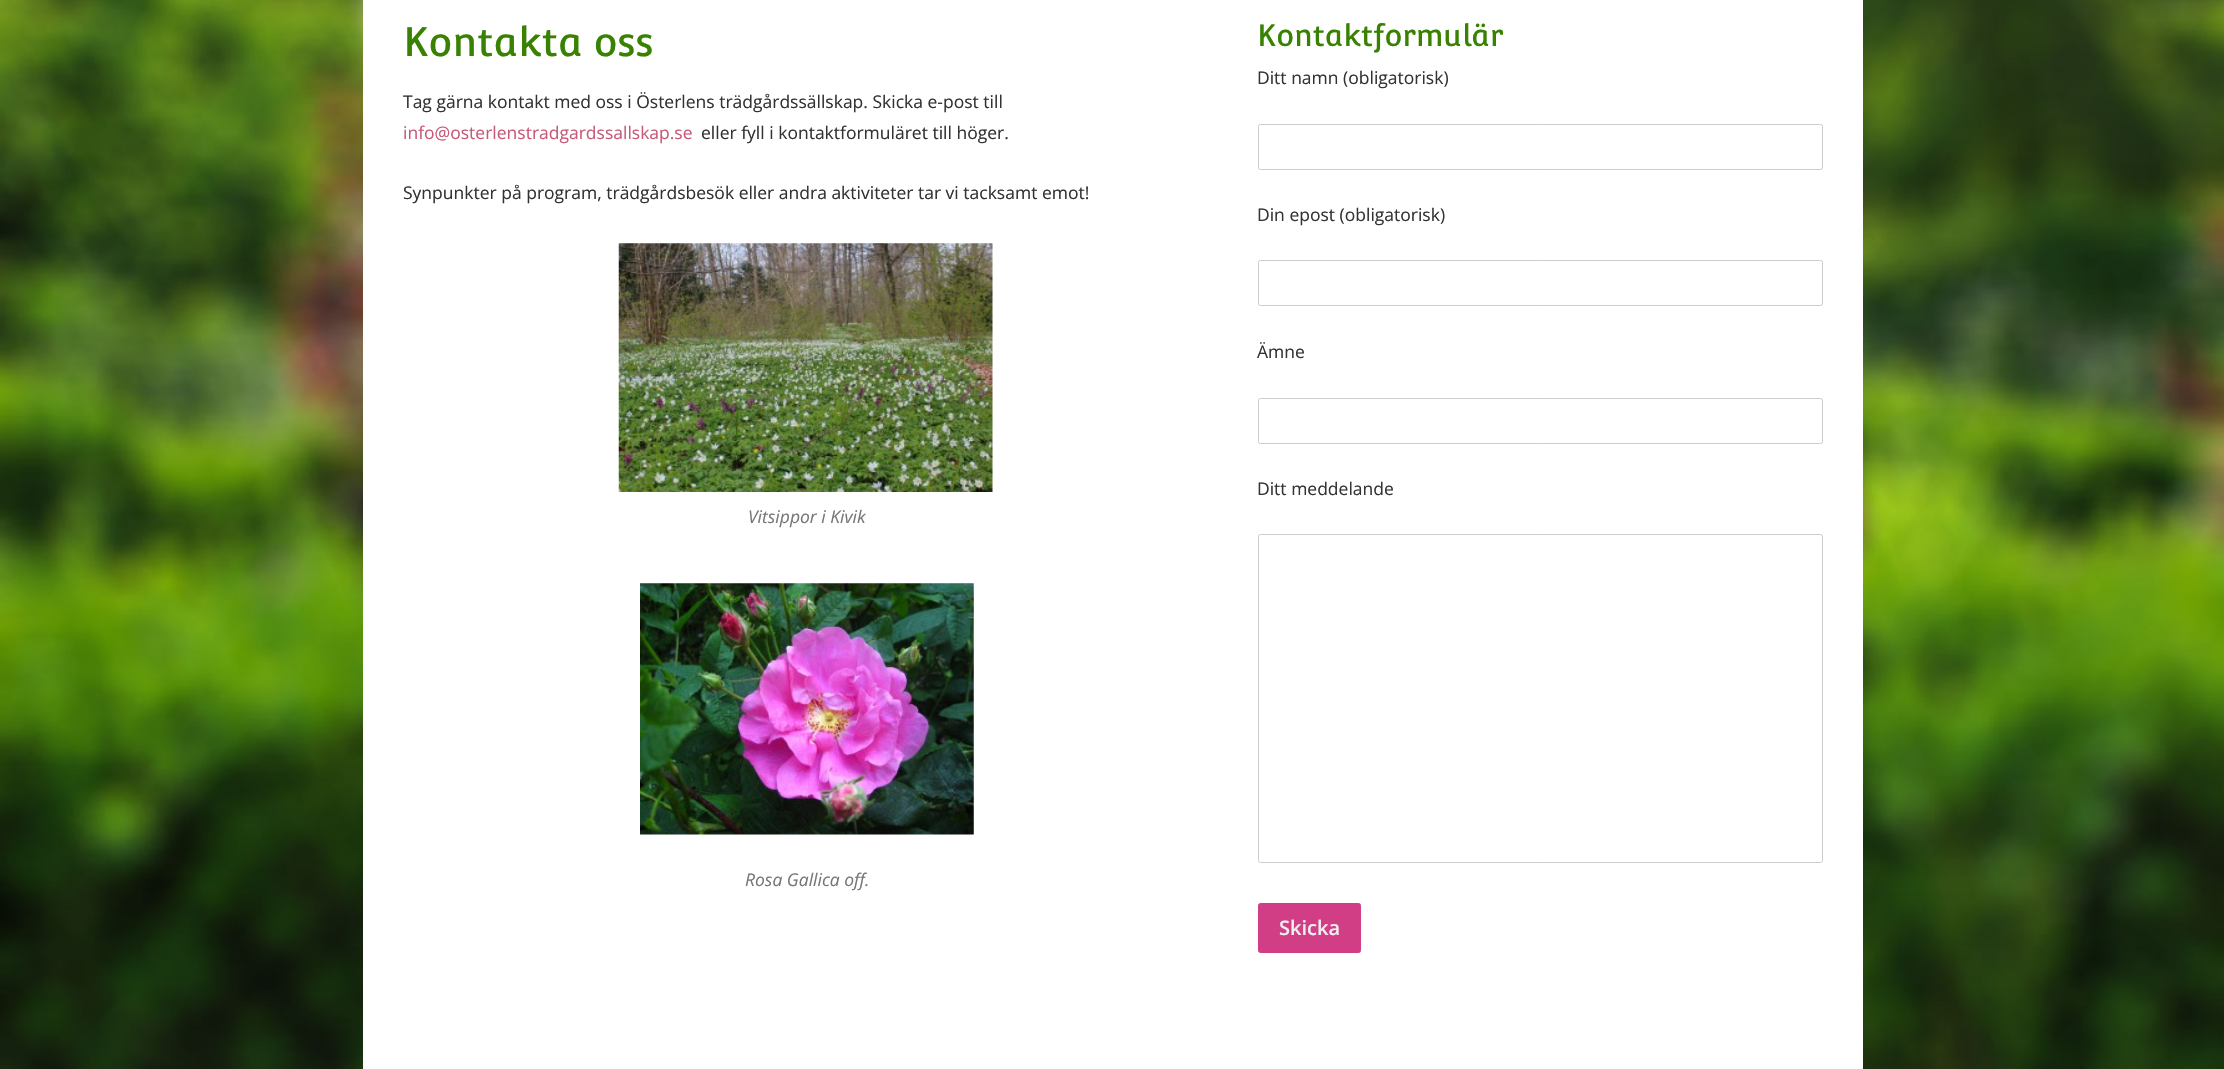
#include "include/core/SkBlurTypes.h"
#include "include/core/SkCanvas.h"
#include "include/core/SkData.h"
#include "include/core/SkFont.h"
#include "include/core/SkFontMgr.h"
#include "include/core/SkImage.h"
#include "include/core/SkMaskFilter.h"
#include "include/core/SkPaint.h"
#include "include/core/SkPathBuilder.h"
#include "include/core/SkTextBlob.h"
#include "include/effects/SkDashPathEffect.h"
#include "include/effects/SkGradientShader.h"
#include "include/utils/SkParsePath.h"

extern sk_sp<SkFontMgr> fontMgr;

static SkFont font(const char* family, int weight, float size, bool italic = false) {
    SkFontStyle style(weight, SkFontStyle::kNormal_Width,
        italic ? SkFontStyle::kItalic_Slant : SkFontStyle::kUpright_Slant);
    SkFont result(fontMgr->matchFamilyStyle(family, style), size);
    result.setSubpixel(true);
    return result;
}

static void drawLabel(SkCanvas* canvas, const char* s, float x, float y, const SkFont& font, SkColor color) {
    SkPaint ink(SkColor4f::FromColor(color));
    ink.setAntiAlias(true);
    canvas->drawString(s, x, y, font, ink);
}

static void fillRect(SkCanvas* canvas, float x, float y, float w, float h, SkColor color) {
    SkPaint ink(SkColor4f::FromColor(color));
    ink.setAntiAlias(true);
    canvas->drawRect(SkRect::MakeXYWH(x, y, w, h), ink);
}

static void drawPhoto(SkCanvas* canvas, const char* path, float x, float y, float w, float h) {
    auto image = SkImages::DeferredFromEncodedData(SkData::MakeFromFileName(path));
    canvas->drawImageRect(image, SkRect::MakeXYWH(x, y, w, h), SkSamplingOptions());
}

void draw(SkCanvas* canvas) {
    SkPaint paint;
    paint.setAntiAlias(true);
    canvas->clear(0xFFFFFFFF);
    drawPhoto(canvas, "assets/img1.png", 0, 0, 2224, 1069);
    fillRect(canvas, 363, 0, 1500, 1069, 0xFFFFFFFF);
    SkFont font1 = font("Convergence", 400, 40);
    drawLabel(canvas, "Kontakta oss", 403, 56, font1, 0xFF398101);
    SkFont font2 = font("Open Sans", 400, 17.5f);
    drawLabel(canvas, "Tag gärna kontakt med oss i Österlens trädgårdssällskap. Skicka e-post till", 403, 108, font2, 0xFF333333);
    drawLabel(canvas, "info@osterlenstradgardssallskap.se", 403, 139, font2, 0xFFC85976);
    drawLabel(canvas, "eller fyll i kontaktformuläret till höger.", 701, 139, font2, 0xFF333333);
    drawLabel(canvas, "Synpunkter på program, trädgårdsbesök eller andra aktiviteter tar vi tacksamt emot!", 403, 199, font2, 0xFF333333);
    drawPhoto(canvas, "assets/img2.png", 618, 243, 375, 249);
    SkFont font3 = font("Open Sans", 400, 17.5f, true);
    drawLabel(canvas, "Vitsippor i Kivik", 748, 523, font3, 0xFF777777);
    drawPhoto(canvas, "assets/img3.png", 640, 583, 334, 252);
    drawLabel(canvas, "Rosa Gallica off.", 745, 886, font3, 0xFF777777);
    SkFont font4 = font("Convergence", 400, 30);
    drawLabel(canvas, "Kontaktformulär", 1257, 46, font4, 0xFF398101);
    drawLabel(canvas, "Ditt namn (obligatorisk)", 1257, 84, font2, 0xFF333333);
    paint.setStroke(true);
    paint.setStrokeWidth(1);
    paint.setColor(0xFFCCCCCC);
    canvas->drawRoundRect(SkRect::MakeXYWH(1258.5f, 124.5f, 564, 45), 2, 2, paint);
    drawLabel(canvas, "Din epost (obligatorisk)", 1257, 221, font2, 0xFF333333);
    canvas->drawRoundRect(SkRect::MakeXYWH(1258.5f, 260.5f, 564, 45), 2, 2, paint);
    drawLabel(canvas, "Ämne", 1257, 358, font2, 0xFF333333);
    canvas->drawRoundRect(SkRect::MakeXYWH(1258.5f, 398.5f, 564, 45), 2, 2, paint);
    drawLabel(canvas, "Ditt meddelande", 1257, 495, font2, 0xFF333333);
    canvas->drawRoundRect(SkRect::MakeXYWH(1258.5f, 534.5f, 564, 328), 2, 2, paint);
    paint.setStroke(false);
    paint.setColor(0xFFD23E86);
    canvas->drawRoundRect(SkRect::MakeXYWH(1258.5f, 903.5f, 102, 49), 2, 2, paint);
    paint.setStroke(true);
    canvas->drawRoundRect(SkRect::MakeXYWH(1258.5f, 903.5f, 102, 49), 2, 2, paint);
    SkFont font5 = font("Open Sans", 600, 20);
    drawLabel(canvas, "Skicka", 1279, 935, font5, 0xFFEEEEEE);
}
